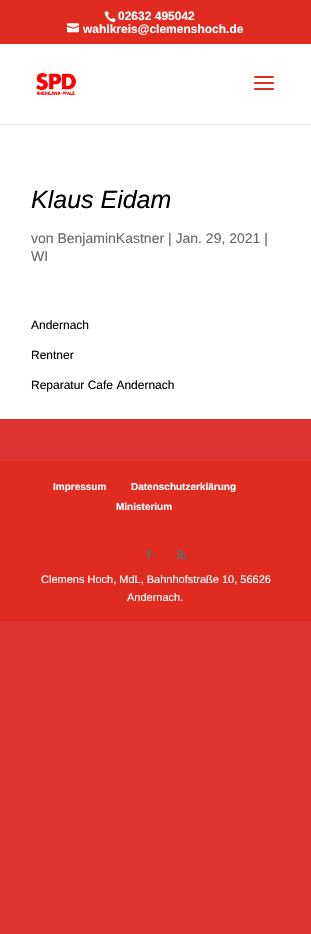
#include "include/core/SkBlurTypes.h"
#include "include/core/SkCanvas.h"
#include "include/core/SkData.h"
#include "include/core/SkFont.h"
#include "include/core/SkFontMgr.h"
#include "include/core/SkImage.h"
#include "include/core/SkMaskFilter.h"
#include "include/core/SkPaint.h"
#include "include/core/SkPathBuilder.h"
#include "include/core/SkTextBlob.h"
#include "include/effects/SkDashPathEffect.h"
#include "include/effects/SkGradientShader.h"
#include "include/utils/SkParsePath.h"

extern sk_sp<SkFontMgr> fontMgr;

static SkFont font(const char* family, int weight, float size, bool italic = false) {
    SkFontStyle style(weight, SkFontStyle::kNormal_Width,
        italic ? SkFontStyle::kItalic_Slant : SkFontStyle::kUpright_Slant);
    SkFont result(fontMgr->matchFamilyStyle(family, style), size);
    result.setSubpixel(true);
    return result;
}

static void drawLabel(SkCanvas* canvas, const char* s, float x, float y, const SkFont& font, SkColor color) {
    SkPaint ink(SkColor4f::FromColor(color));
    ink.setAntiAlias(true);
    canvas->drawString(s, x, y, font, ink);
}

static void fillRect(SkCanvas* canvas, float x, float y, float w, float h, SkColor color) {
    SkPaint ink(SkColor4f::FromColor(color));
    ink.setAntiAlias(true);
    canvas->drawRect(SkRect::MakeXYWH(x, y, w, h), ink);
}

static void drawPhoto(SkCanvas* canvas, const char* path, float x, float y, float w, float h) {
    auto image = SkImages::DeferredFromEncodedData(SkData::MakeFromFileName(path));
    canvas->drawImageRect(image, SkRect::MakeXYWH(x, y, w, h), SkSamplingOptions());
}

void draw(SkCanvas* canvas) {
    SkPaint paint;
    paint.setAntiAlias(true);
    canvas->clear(0xFFDD3333);
    fillRect(canvas, 0, 0, 311, 44, 0xFFE02B20);
    drawPhoto(canvas, "assets/img1.png", 104, 11, 12, 12);
    SkFont font1 = font("Liberation Sans", 700, 12);
    drawLabel(canvas, "02632 495042", 118, 20, font1, 0xFFFFFFFF);
    drawPhoto(canvas, "assets/img2.png", 67, 23, 12, 10);
    drawLabel(canvas, "wahlkreis@clemenshoch.de", 83, 33, font1, 0xFFFFFFFF);
    fillRect(canvas, 0, 124, 311, 1, 0xFFE6E6E6);
    fillRect(canvas, 0, 44, 311, 80, 0xFFFFFFFF);
    drawPhoto(canvas, "assets/img3.png", 36, 73, 40, 22);
    drawPhoto(canvas, "assets/img4.png", 254, 76, 20, 14);
    fillRect(canvas, 0, 125, 311, 294, 0xFFFFFFFF);
    SkFont font2 = font("Liberation Sans", 400, 25, true);
    drawLabel(canvas, "Klaus Eidam", 31, 208, font2, 0xFF000000);
    SkFont font3 = font("Liberation Sans", 400, 14);
    drawLabel(canvas, "von BenjaminKastner | Jan. 29, 2021 |", 31, 243, font3, 0xFF666666);
    drawLabel(canvas, "WI", 31, 261, font3, 0xFF666666);
    SkFont font4 = font("Liberation Sans", 400, 12);
    drawLabel(canvas, "Andernach", 31, 329, font4, 0xFF000000);
    drawLabel(canvas, "Rentner", 31, 359, font4, 0xFF000000);
    drawLabel(canvas, "Reparatur Cafe Andernach", 31, 389, font4, 0xFF000000);
    fillRect(canvas, 0, 461, 311, 160, 0xFFE02B20);
    SkFont font5 = font("Liberation Sans", 700, 10);
    drawLabel(canvas, "Impressum", 53, 490, font5, 0xFFFFFFFF);
    drawLabel(canvas, "Datenschutzerklärung", 131, 490, font5, 0xFFFFFFFF);
    drawLabel(canvas, "Ministerium", 116, 510, font5, 0xFFFFFFFF);
    drawPhoto(canvas, "assets/img5.png", 146, 549, 6, 11);
    drawPhoto(canvas, "assets/img6.png", 177, 549, 10, 11);
    SkFont font6 = font("Liberation Sans", 400, 11);
    drawLabel(canvas, "Clemens Hoch, MdL, Bahnhofstraße 10, 56626", 41, 583, font6, 0xFFFFFFFF);
    drawLabel(canvas, "Andernach.", 127, 601, font6, 0xFFFFFFFF);
}
